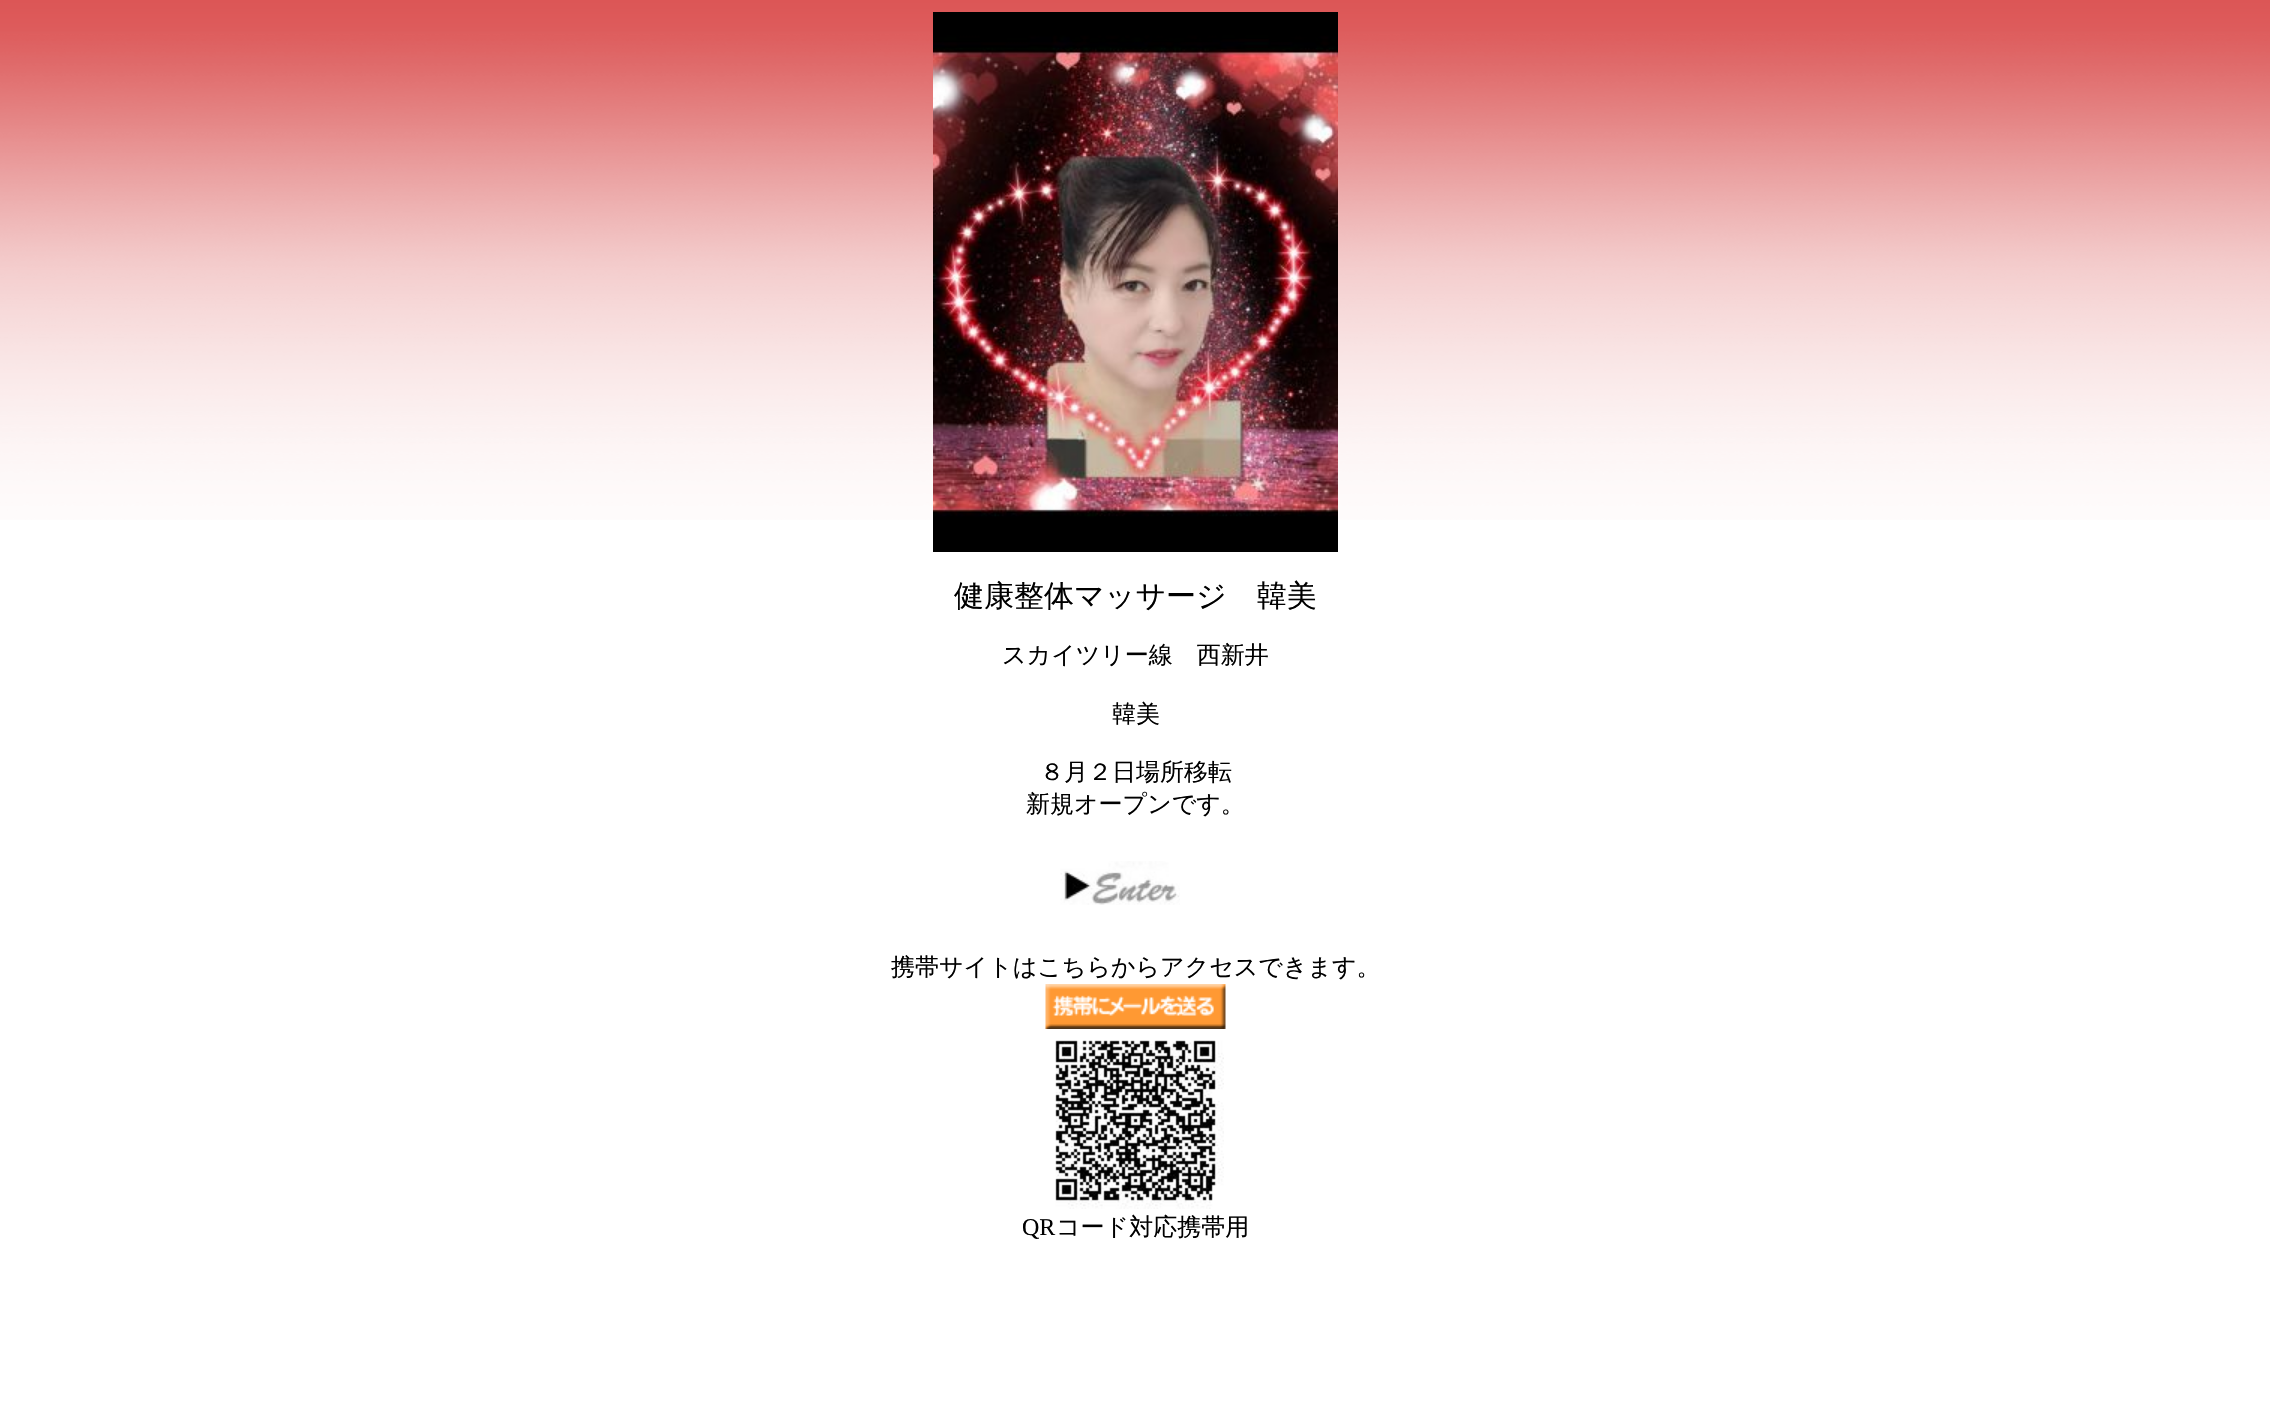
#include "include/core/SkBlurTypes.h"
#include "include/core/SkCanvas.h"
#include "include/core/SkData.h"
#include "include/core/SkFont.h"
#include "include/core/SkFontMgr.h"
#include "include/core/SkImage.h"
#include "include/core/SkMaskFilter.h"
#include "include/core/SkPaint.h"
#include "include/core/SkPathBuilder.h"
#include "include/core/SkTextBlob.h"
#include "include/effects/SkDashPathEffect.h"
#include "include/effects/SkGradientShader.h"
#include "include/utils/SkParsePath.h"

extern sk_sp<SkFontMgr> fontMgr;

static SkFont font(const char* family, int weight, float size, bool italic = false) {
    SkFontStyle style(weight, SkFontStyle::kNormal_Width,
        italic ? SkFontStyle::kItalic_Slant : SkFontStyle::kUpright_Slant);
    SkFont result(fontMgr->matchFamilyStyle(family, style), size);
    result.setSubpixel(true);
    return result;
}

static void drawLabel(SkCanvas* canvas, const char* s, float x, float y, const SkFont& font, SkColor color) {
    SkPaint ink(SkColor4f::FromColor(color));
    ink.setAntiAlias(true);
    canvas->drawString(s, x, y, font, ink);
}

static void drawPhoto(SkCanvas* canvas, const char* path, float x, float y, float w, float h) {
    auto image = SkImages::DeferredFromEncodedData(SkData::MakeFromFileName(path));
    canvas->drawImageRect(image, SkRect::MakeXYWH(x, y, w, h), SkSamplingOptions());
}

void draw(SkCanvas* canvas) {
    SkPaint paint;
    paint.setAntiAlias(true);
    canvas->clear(0xFFFFFFFF);
    drawPhoto(canvas, "assets/img1.png", 0, 0, 2270, 520);
    drawPhoto(canvas, "assets/img2.png", 933, 12, 405, 540);
    SkFont font1 = font("WenQuanYi Zen Hei", 500, 30);
    drawLabel(canvas, "健康整体マッサージ　韓美", 954, 606, font1, 0xFF000000);
    SkFont font2 = font("WenQuanYi Zen Hei", 500, 24);
    drawLabel(canvas, "スカイツリー線　西新井", 1002, 663, font2, 0xFF000000);
    drawLabel(canvas, "韓美", 1112, 722, font2, 0xFF000000);
    drawLabel(canvas, "８月２日場所移転", 1040, 780, font2, 0xFF000000);
    drawLabel(canvas, "新規オープンです。", 1026, 812, font2, 0xFF000000);
    drawPhoto(canvas, "assets/img3.png", 1060, 861, 120, 44);
    drawLabel(canvas, "携帯サイトはこちらからアクセスできます。", 891, 975, font2, 0xFF000000);
    drawPhoto(canvas, "assets/img4.png", 1045, 984, 181, 45);
    drawPhoto(canvas, "assets/img5.png", 1055, 1040, 169, 169);
    SkFont font3 = font("Liberation Serif", 400, 24);
    drawLabel(canvas, "QR", 1022, 1235, font3, 0xFF000000);
    drawLabel(canvas, "コード対応携帯用", 1056, 1235, font2, 0xFF000000);
}
